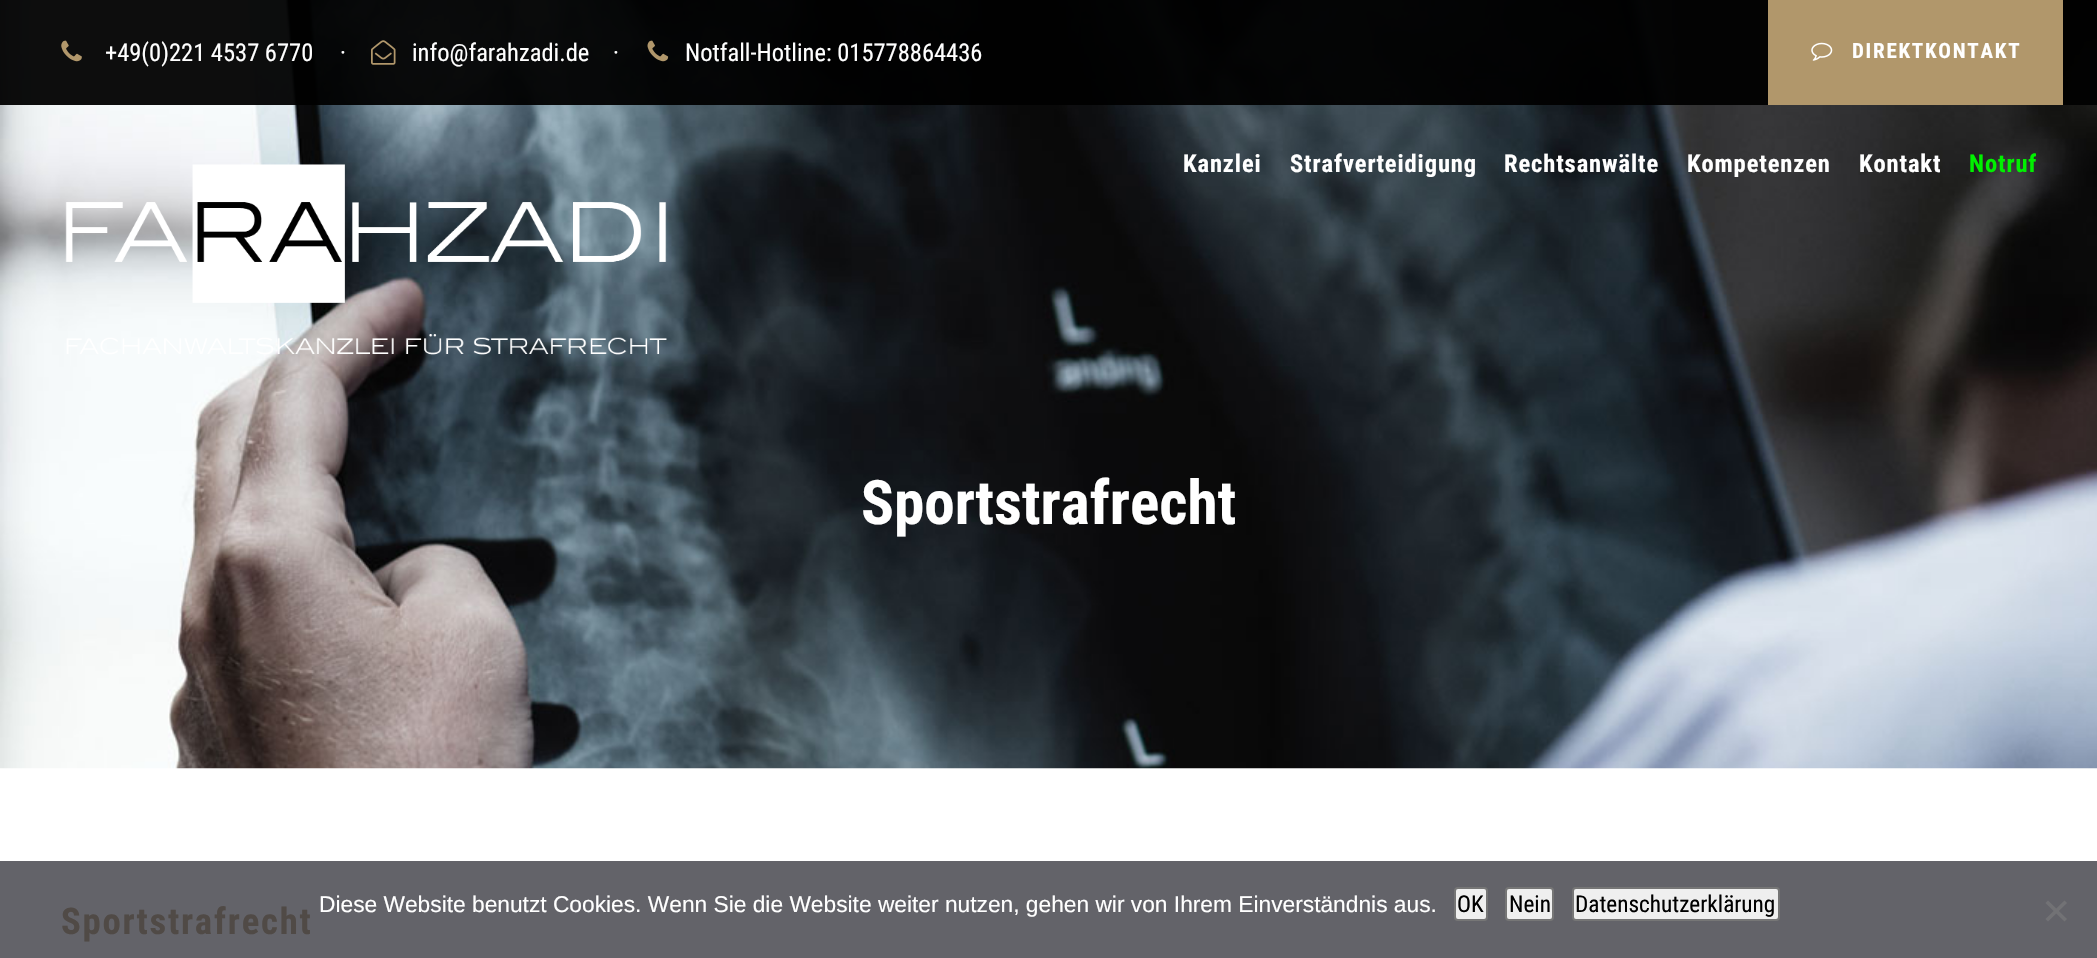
#include "include/core/SkBlurTypes.h"
#include "include/core/SkCanvas.h"
#include "include/core/SkData.h"
#include "include/core/SkFont.h"
#include "include/core/SkFontMgr.h"
#include "include/core/SkImage.h"
#include "include/core/SkMaskFilter.h"
#include "include/core/SkPaint.h"
#include "include/core/SkPathBuilder.h"
#include "include/core/SkTextBlob.h"
#include "include/effects/SkDashPathEffect.h"
#include "include/effects/SkGradientShader.h"
#include "include/utils/SkParsePath.h"

extern sk_sp<SkFontMgr> fontMgr;

static SkFont font(const char* family, int weight, float size, bool italic = false) {
    SkFontStyle style(weight, SkFontStyle::kNormal_Width,
        italic ? SkFontStyle::kItalic_Slant : SkFontStyle::kUpright_Slant);
    SkFont result(fontMgr->matchFamilyStyle(family, style), size);
    result.setSubpixel(true);
    return result;
}

static void drawLabel(SkCanvas* canvas, const char* s, float x, float y, const SkFont& font, SkColor color) {
    SkPaint ink(SkColor4f::FromColor(color));
    ink.setAntiAlias(true);
    canvas->drawString(s, x, y, font, ink);
}

static void drawTracked(SkCanvas* canvas, const char* s, float x, float y, const SkFont& font, const SkPaint& ink, float letter, float word) {
    std::vector<SkGlyphID> glyphs(font.countText(s, strlen(s), SkTextEncoding::kUTF8));
    std::vector<float> xs(glyphs.size());
    font.textToGlyphs(s, strlen(s), SkTextEncoding::kUTF8, glyphs);
    font.getXPos(glyphs, xs, x);
    float extra = 0;
    for (size_t i = 0; i < glyphs.size(); i++) {
        xs[i] += extra;
        extra += letter + word * (glyphs[i] == font.unicharToGlyph(' '));
    }
    canvas->drawTextBlob(SkTextBlob::MakeFromPosHGlyphs(glyphs, xs, y, font), 0, 0, ink);
}

static void fillRect(SkCanvas* canvas, float x, float y, float w, float h, SkColor color) {
    SkPaint ink(SkColor4f::FromColor(color));
    ink.setAntiAlias(true);
    canvas->drawRect(SkRect::MakeXYWH(x, y, w, h), ink);
}

static void drawPhoto(SkCanvas* canvas, const char* path, float x, float y, float w, float h) {
    auto image = SkImages::DeferredFromEncodedData(SkData::MakeFromFileName(path));
    canvas->drawImageRect(image, SkRect::MakeXYWH(x, y, w, h), SkSamplingOptions());
}

static SkPath parsePath(const char* data, bool evenOdd = false) {
    SkPath result = *SkParsePath::FromSVGString(data);
    if (evenOdd) result.setFillType(SkPathFillType::kEvenOdd);
    return result;
}

void draw(SkCanvas* canvas) {
    SkPaint paint;
    paint.setAntiAlias(true);
    canvas->clear(0xFFFFFFFF);
    fillRect(canvas, 0, 861, 2097, 97, 0xFF636369);
    drawPhoto(canvas, "assets/img6.png", 0, 0, 2097, 769);
    fillRect(canvas, 0, 0, 2097, 105, 0xF2000000);
    drawPhoto(canvas, "assets/img1.png", 61, 40, 21, 22);
    SkFont font1 = font("Roboto Condensed", 400, 24.5f);
    drawLabel(canvas, "+49(0)221 4537 6770", 105, 61, font1, 0xFFFFFFFF);
    drawLabel(canvas, "·", 340, 61, font1, 0xFFFFFFFF);
    drawPhoto(canvas, "assets/img2.png", 371, 40, 25, 25);
    drawLabel(canvas, "info@farahzadi.de", 412, 61, font1, 0xFFFFFFFF);
    drawLabel(canvas, "·", 613, 61, font1, 0xFFFFFFFF);
    drawPhoto(canvas, "assets/img3.png", 647, 40, 22, 22);
    drawLabel(canvas, "Notfall-Hotline: 015778864436", 685, 61, font1, 0xFFFFFFFF);
    fillRect(canvas, 1768, 0, 295, 105, 0xFFB1976B);
    drawPhoto(canvas, "assets/img4.png", 1811, 42, 22, 19);
    SkFont font2 = font("Roboto Condensed", 700, 21);
    paint.setColor(0xFFFFFFFF);
    drawTracked(canvas, "DIREKTKONTAKT", 1852, 58, font2, paint, 1.75f, 0);
    drawPhoto(canvas, "assets/img5.png", 65, 164, 602, 191);
    SkFont font3 = font("Roboto Condensed", 700, 24.5f);
    drawTracked(canvas, "Kanzlei", 1183, 172, font3, paint, 0.9f, 0);
    drawTracked(canvas, "Strafverteidigung", 1290, 172, font3, paint, 0.9f, 0);
    drawTracked(canvas, "Rechtsanwälte", 1504, 172, font3, paint, 0.9f, 0);
    drawTracked(canvas, "Kompetenzen", 1687, 172, font3, paint, 0.9f, 0);
    drawTracked(canvas, "Kontakt", 1859, 172, font3, paint, 0.9f, 0);
    paint.setColor(0xFF00F000);
    drawTracked(canvas, "Notruf", 1969, 172, font3, paint, 0.9f, 0);
    SkFont font4 = font("Roboto Condensed", 700, 61.25f);
    drawLabel(canvas, "Sportstrafrecht", 861, 524, font4, 0xFFFFFFFF);
    SkFont font5 = font("Roboto Condensed", 700, 36.75f);
    paint.setColor(0xFF504A46);
    drawTracked(canvas, "Sportstrafrecht", 61, 934, font5, paint, 1.75f, 0);
    SkFont font6 = font("Liberation Sans", 400, 22.75f);
    drawLabel(canvas, "Diese Website benutzt Cookies. Wenn Sie die Website weiter nutzen, gehen wir von Ihrem Einverständnis aus.", 319, 912, font6, 0xFFFFFFFF);
    paint.setColor(0xFFEFEFEF);
    canvas->drawRoundRect(SkRect::MakeXYWH(1455, 888, 32, 32), 3, 3, paint);
    paint.setStroke(true);
    paint.setStrokeWidth(2);
    paint.setColor(0xFF767676);
    canvas->drawRoundRect(SkRect::MakeXYWH(1455, 888, 32, 32), 3, 3, paint);
    SkFont font7 = font("Roboto Condensed", 400, 23.25f);
    drawLabel(canvas, "OK", 1457, 912, font7, 0xFF000000);
    paint.setStroke(false);
    paint.setColor(0xFFEFEFEF);
    canvas->drawRoundRect(SkRect::MakeXYWH(1506, 888, 47, 32), 3, 3, paint);
    paint.setStroke(true);
    paint.setColor(0xFF767676);
    canvas->drawRoundRect(SkRect::MakeXYWH(1506, 888, 47, 32), 3, 3, paint);
    drawLabel(canvas, "Nein", 1509, 912, font7, 0xFF000000);
    paint.setStroke(false);
    paint.setColor(0xFFEFEFEF);
    canvas->drawRoundRect(SkRect::MakeXYWH(1573, 888, 206, 32), 3, 3, paint);
    paint.setStroke(true);
    paint.setColor(0xFF767676);
    canvas->drawRoundRect(SkRect::MakeXYWH(1573, 888, 206, 32), 3, 3, paint);
    drawLabel(canvas, "Datenschutzerklärung", 1575, 912, font7, 0xFF000000);
    paint.setStroke(false);
    paint.setColor(0xFF727275);
    canvas->drawPath(parsePath("M2064.5 900.5L2067 903L2048 921.5L2045.5 919Z"), paint);
    canvas->drawPath(parsePath("M2045.5 903L2048 900.5L2067 919L2064.5 921.5Z"), paint);
}
